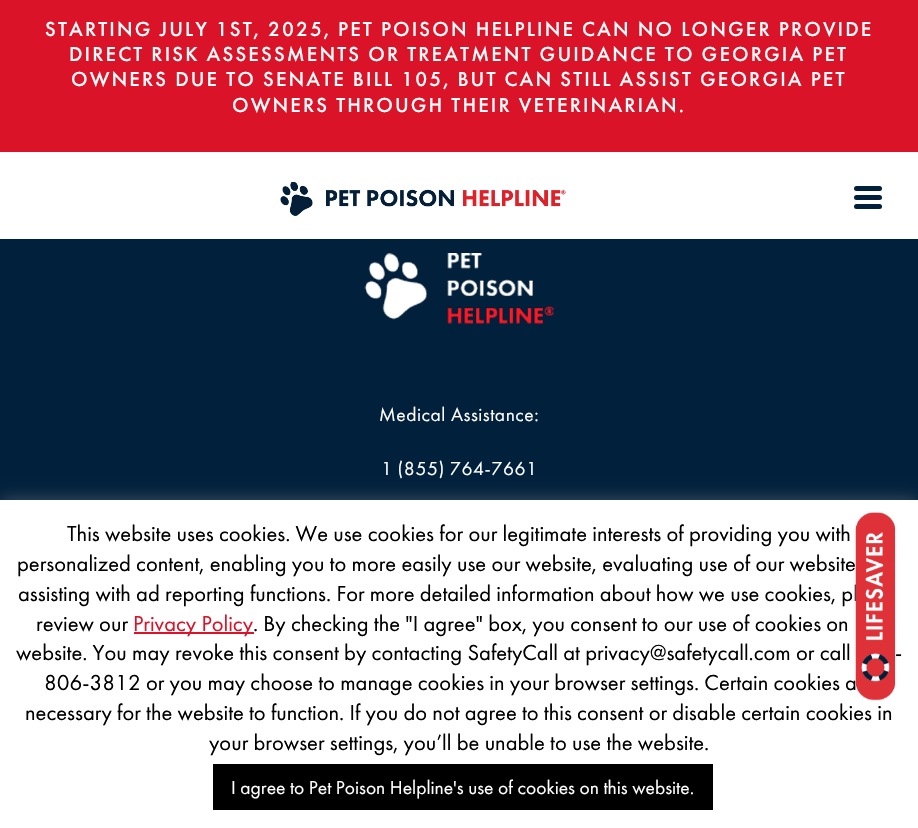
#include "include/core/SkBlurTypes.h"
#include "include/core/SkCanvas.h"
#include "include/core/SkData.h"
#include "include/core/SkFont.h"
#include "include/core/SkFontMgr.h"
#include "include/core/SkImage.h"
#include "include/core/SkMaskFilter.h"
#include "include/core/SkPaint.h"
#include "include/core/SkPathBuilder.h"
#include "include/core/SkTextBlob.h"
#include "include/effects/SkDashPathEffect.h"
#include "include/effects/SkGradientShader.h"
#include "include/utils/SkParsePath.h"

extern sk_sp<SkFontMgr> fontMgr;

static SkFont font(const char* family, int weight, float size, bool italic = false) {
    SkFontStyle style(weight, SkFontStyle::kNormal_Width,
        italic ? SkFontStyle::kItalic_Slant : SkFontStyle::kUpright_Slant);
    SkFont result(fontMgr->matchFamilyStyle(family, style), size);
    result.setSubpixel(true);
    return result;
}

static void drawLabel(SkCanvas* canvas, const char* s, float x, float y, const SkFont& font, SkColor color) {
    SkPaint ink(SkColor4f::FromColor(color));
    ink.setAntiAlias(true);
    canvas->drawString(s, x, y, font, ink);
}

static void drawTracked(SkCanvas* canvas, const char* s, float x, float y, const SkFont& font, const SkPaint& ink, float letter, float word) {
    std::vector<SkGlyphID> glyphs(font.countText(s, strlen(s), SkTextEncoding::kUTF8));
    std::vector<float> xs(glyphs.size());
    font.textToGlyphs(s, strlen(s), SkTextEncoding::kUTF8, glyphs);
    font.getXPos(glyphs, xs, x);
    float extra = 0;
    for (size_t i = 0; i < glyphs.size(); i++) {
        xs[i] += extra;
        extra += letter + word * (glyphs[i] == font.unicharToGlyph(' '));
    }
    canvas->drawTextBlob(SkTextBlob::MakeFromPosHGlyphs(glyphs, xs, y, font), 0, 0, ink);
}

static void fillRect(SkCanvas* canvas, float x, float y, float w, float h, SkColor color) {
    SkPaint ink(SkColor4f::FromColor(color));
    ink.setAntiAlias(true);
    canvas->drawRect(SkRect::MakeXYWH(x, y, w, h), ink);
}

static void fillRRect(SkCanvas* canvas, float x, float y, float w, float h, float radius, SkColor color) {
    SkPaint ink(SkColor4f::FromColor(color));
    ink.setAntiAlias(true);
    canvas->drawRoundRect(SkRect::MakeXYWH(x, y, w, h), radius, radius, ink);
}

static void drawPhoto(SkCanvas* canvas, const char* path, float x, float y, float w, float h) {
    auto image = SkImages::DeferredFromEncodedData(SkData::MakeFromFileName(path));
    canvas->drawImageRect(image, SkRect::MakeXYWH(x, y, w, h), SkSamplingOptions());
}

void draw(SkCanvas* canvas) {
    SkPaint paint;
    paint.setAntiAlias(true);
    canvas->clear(0xFF01203B);
    fillRect(canvas, 0, 0, 918, 152, 0xFFDB1328);
    SkFont font1 = font("Futura PT", 500, 21);
    paint.setColor(0xFFFFFFFF);
    drawTracked(canvas, "STARTING JULY 1ST, 2025, PET POISON HELPLINE CAN NO LONGER PROVIDE", 45, 36, font1, paint, 2.1f, 0);
    drawTracked(canvas, "DIRECT RISK ASSESSMENTS OR TREATMENT GUIDANCE TO GEORGIA PET", 69, 61, font1, paint, 2.1f, 0);
    drawTracked(canvas, "OWNERS DUE TO SENATE BILL 105, BUT CAN STILL ASSIST GEORGIA PET", 71, 86, font1, paint, 2.1f, 0);
    drawTracked(canvas, "OWNERS THROUGH THEIR VETERINARIAN.", 232, 112, font1, paint, 2.1f, 0);
    fillRect(canvas, 0, 152, 918, 87, 0xFFFFFFFF);
    drawPhoto(canvas, "assets/img1.png", 280, 182, 286, 34);
    fillRRect(canvas, 854, 186, 28, 5, 2.5f, 0xFF01203B);
    fillRRect(canvas, 854, 195, 28, 5, 2.5f, 0xFF01203B);
    fillRRect(canvas, 854, 204, 28, 5, 2.5f, 0xFF01203B);
    paint.setColor(0x4DACABAB);
    paint.setMaskFilter(SkMaskFilter::MakeBlur(kNormal_SkBlurStyle, 7.5f));
    canvas->drawRect(SkRect::MakeXYWH(0, 498, 918, 329), paint);
    paint.setMaskFilter(nullptr);
    fillRect(canvas, 0, 500, 918, 328, 0xFFFFFFFF);
    SkFont font2 = font("Futura PT", 400, 22.5f);
    drawLabel(canvas, "personalized content, enabling you to more easily use our website, evaluating use of our website", 17, 571, font2, 0xFF000000);
    drawLabel(canvas, "assisting with ad reporting functions. For more detailed information about how we use cookies, pl", 18, 601, font2, 0xFF000000);
    drawLabel(canvas, "-", 895, 660, font2, 0xFF000000);
    drawLabel(canvas, "806-3812 or you may choose to manage cookies in your browser settings. Certain cookies a", 44, 690, font2, 0xFF000000);
    drawPhoto(canvas, "assets/img2.png", 855, 512, 41, 189);
    drawPhoto(canvas, "assets/img3.png", 364, 253, 190, 71);
    SkFont font3 = font("Futura PT", 400, 19.5f);
    paint.setColor(0xFFFFFFFF);
    drawTracked(canvas, "Medical Assistance:", 379, 421, font3, paint, 0.5f, 0);
    drawTracked(canvas, "1 (855) 764-7661", 381, 475, font3, paint, 0.5f, 0);
    drawLabel(canvas, "This website uses cookies. We use cookies for our legitimate interests of providing you with", 67, 541, font2, 0xFF000000);
    drawLabel(canvas, "review our", 36, 631, font2, 0xFF000000);
    fillRect(canvas, 134, 632, 120, 2, 0xFFDB1328);
    drawLabel(canvas, "Privacy Policy", 133, 631, font2, 0xFFDB1328);
    drawLabel(canvas, ". By checking the \"I agree\" box, you consent to our use of cookies on", 253, 631, font2, 0xFF000000);
    drawLabel(canvas, "website. You may revoke this consent by contacting SafetyCall at privacy@safetycall.com or call", 16, 660, font2, 0xFF000000);
    drawLabel(canvas, "necessary for the website to function. If you do not agree to this consent or disable certain cookies in", 25, 720, font2, 0xFF000000);
    drawLabel(canvas, "your browser settings, you’ll be unable to use the website.", 209, 750, font2, 0xFF000000);
    fillRect(canvas, 213, 764, 500, 46, 0xFF000000);
    drawLabel(canvas, "I agree to Pet Poison Helpline's use of cookies on this website.", 231, 794, font3, 0xFFFFFFFF);
}
